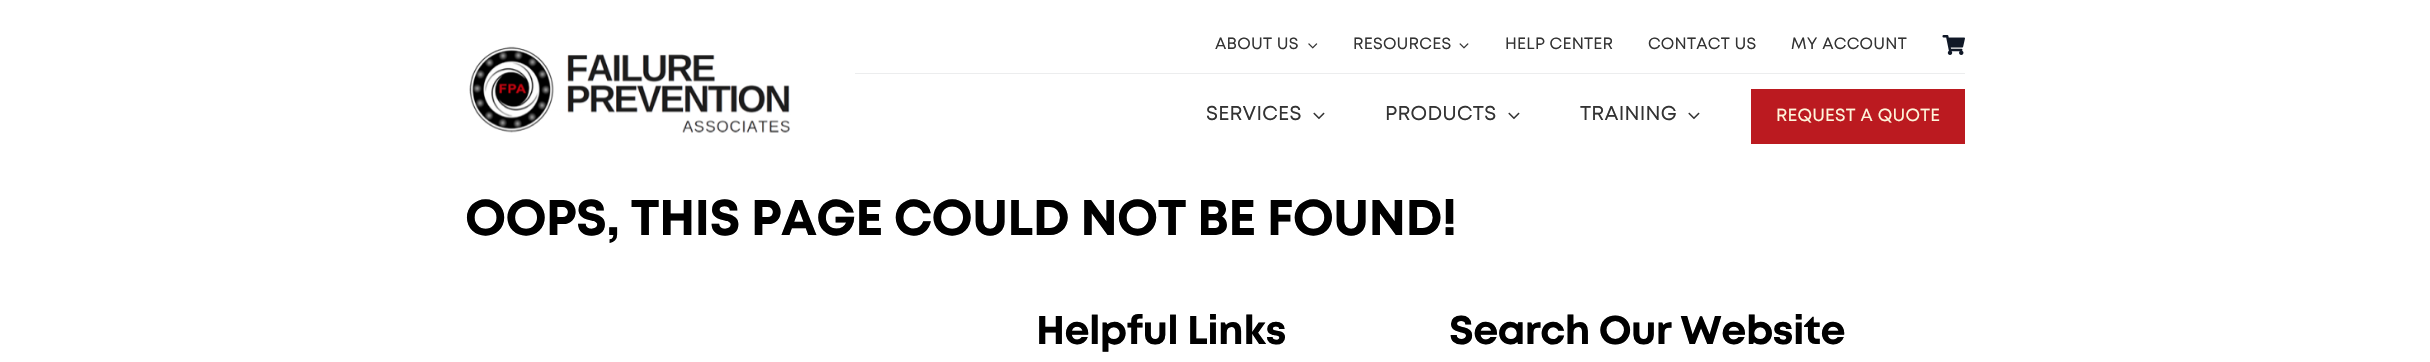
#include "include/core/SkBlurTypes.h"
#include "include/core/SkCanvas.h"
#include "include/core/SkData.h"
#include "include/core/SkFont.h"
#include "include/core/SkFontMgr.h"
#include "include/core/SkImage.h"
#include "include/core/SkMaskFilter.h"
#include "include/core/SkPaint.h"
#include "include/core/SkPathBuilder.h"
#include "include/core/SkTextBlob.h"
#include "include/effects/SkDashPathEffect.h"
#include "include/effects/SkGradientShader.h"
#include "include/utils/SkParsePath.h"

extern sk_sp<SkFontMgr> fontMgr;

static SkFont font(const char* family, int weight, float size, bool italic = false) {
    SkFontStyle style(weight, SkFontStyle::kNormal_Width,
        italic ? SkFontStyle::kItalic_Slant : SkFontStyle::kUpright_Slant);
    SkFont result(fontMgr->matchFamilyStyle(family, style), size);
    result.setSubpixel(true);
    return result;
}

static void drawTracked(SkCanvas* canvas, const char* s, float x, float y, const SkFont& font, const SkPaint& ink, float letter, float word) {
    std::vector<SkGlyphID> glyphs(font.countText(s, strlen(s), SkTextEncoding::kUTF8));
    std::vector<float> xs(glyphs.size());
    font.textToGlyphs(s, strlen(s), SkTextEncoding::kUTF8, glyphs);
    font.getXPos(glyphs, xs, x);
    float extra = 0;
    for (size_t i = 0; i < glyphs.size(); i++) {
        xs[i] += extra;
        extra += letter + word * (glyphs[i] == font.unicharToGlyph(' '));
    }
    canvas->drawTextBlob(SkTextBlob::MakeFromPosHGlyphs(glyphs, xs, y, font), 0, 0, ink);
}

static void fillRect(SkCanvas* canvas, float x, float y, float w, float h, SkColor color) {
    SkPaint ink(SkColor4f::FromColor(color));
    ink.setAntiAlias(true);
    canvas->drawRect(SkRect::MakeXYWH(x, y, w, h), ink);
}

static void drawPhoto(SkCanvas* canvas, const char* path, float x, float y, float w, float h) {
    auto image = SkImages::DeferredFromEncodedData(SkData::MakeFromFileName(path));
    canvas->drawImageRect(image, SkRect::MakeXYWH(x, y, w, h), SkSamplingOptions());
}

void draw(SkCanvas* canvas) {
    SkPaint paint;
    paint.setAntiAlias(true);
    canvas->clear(0xFFFFFFFF);
    drawPhoto(canvas, "assets/img1.png", 469, 46, 322, 87);
    fillRect(canvas, 855, 73, 1110, 1, 0xFFECEDEE);
    SkFont font1 = font("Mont", 400, 16.25f);
    paint.setColor(0xFF333333);
    drawTracked(canvas, "ABOUT US", 1215, 49, font1, paint, 0.25f, 0);
    drawPhoto(canvas, "assets/img2.png", 1308, 43, 10, 6);
    drawTracked(canvas, "RESOURCES", 1353, 49, font1, paint, 0.25f, 0);
    drawPhoto(canvas, "assets/img3.png", 1459, 43, 10, 6);
    drawTracked(canvas, "HELP CENTER", 1505, 49, font1, paint, 0.25f, 0);
    drawTracked(canvas, "CONTACT US", 1648, 49, font1, paint, 0.25f, 0);
    drawTracked(canvas, "MY ACCOUNT", 1791, 49, font1, paint, 0.25f, 0);
    drawPhoto(canvas, "assets/img4.png", 1942, 35, 23, 20);
    SkFont font2 = font("Mont", 400, 20);
    drawTracked(canvas, "SERVICES", 1206, 120, font2, paint, 0.25f, 0);
    drawPhoto(canvas, "assets/img5.png", 1313, 112, 12, 8);
    drawTracked(canvas, "PRODUCTS", 1385, 120, font2, paint, 0.25f, 0);
    drawPhoto(canvas, "assets/img5.png", 1508, 112, 12, 8);
    drawTracked(canvas, "TRAINING", 1580, 120, font2, paint, 0.25f, 0);
    drawPhoto(canvas, "assets/img5.png", 1688, 112, 12, 8);
    fillRect(canvas, 1751, 89, 214, 55, 0xFFBB1A20);
    SkFont font3 = font("Mont", 400, 17.5f);
    paint.setColor(0xFFFFF6DB);
    drawTracked(canvas, "REQUEST A QUOTE", 1776, 121, font3, paint, 0.25f, 0);
    SkFont font4 = font("Mont", 700, 50);
    paint.setColor(0xFF000000);
    drawTracked(canvas, "OOPS, THIS PAGE COULD NOT BE FOUND!", 465, 235, font4, paint, -0.75f, 0);
    SkFont font5 = font("Mont", 700, 40);
    drawTracked(canvas, "Helpful Links", 1036, 344, font5, paint, -0.6f, 0);
    drawTracked(canvas, "Search Our Website", 1449, 344, font5, paint, -0.6f, 0);
}
